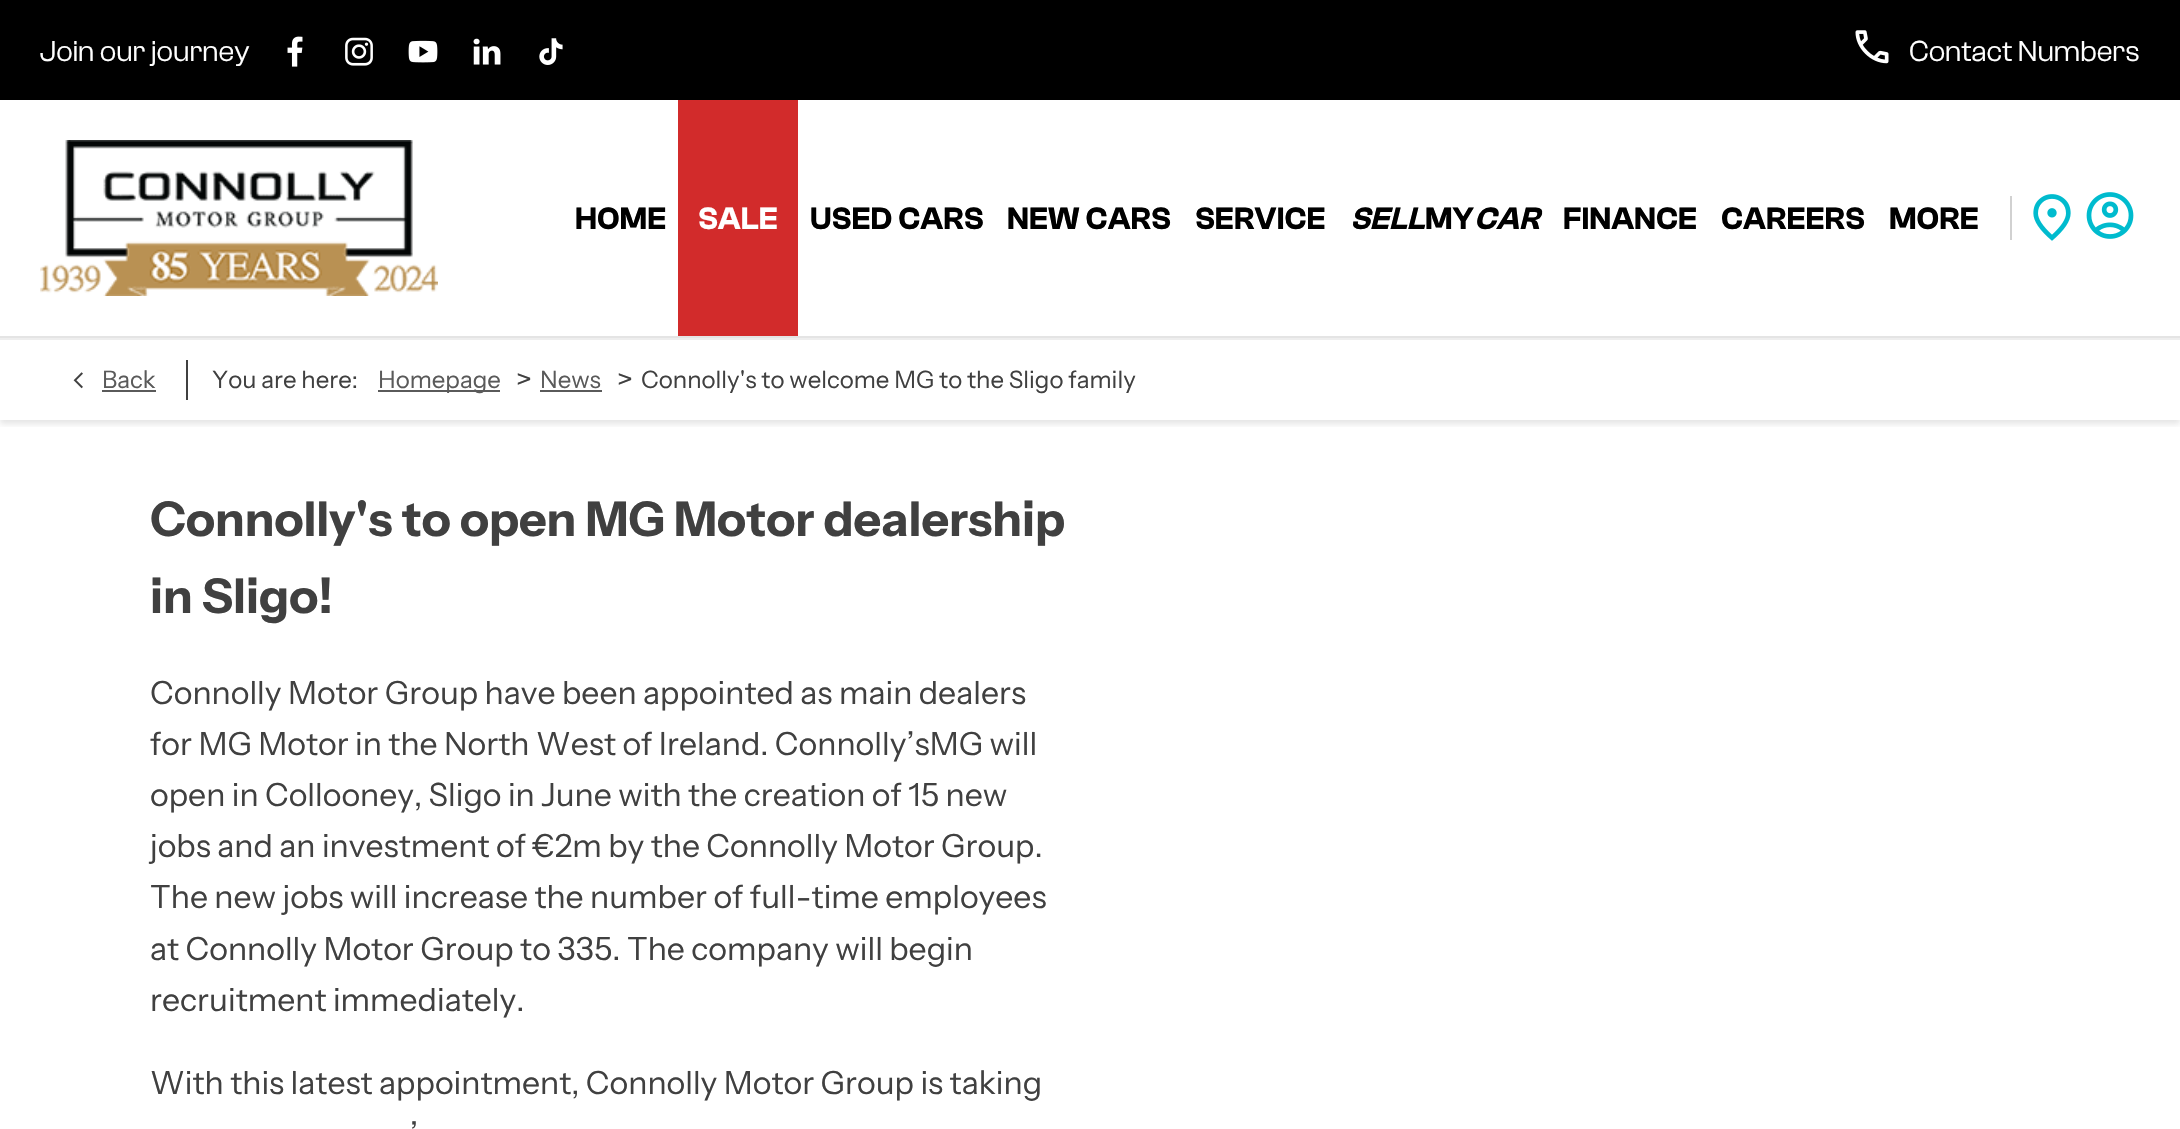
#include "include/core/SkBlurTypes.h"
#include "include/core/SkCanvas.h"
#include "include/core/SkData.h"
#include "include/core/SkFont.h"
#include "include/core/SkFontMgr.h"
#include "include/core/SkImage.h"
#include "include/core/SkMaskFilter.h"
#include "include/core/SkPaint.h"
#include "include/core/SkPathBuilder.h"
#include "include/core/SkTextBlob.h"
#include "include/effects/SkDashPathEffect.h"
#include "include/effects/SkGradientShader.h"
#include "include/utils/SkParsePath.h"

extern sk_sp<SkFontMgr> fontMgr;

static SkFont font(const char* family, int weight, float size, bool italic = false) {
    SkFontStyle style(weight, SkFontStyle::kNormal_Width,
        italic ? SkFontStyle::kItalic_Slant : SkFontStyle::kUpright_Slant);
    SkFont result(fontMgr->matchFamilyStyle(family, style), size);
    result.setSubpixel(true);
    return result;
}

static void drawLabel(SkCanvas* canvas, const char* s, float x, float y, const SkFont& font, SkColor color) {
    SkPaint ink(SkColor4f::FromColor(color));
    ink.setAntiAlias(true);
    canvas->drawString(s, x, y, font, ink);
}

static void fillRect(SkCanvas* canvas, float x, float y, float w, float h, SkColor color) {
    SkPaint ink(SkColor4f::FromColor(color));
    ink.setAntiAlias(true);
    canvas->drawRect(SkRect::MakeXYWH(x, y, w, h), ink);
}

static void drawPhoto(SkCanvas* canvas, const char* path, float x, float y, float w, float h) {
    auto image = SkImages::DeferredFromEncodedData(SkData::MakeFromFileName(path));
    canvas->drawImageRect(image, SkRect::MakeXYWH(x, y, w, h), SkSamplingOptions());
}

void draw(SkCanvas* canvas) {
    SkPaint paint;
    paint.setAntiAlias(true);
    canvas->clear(0xFFFFFFFF);
    fillRect(canvas, 0, 0, 2180, 100, 0xFF000000);
    SkFont font1 = font("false", 400, 30);
    drawLabel(canvas, "Join our journey", 40, 61, font1, 0xFFFFFFFF);
    drawPhoto(canvas, "assets/img1.png", 287, 36, 16, 31);
    drawPhoto(canvas, "assets/img2.png", 345, 37, 28, 29);
    drawPhoto(canvas, "assets/img3.png", 408, 40, 30, 23);
    drawPhoto(canvas, "assets/img4.png", 473, 38, 28, 27);
    drawPhoto(canvas, "assets/img5.png", 539, 38, 24, 27);
    drawPhoto(canvas, "assets/img6.png", 1855, 30, 34, 34);
    drawLabel(canvas, "Contact Numbers", 1909, 61, font1, 0xFFFFFFFF);
    canvas->save();
    canvas->clipRect(SkRect::MakeXYWH(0, 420, 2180, 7));
    paint.setColor(0x1A000000);
    paint.setMaskFilter(SkMaskFilter::MakeBlur(kNormal_SkBlurStyle, 3));
    canvas->drawRect(SkRect::MakeXYWH(0, 342, 2180, 82), paint);
    paint.setMaskFilter(nullptr);
    canvas->restore();
    fillRect(canvas, 0, 336, 2180, 2, 0xFFE4E4E4);
    drawPhoto(canvas, "assets/img7.png", 40, 140, 398, 156);
    SkFont font2 = font("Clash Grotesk", 600, 32);
    drawLabel(canvas, "HOME", 575, 229, font2, 0xFF000000);
    fillRect(canvas, 678, 100, 120, 236, 0xFFD22B2B);
    drawLabel(canvas, "SALE", 698, 229, font2, 0xFFFFFFFF);
    drawLabel(canvas, "USED CARS", 810, 229, font2, 0xFF000000);
    drawLabel(canvas, "NEW CARS", 1007, 229, font2, 0xFF000000);
    drawLabel(canvas, "SERVICE", 1195, 229, font2, 0xFF000000);
    SkFont font3 = font("Clash Grotesk", 600, 32, true);
    drawLabel(canvas, "SELL", 1350, 229, font3, 0xFF000000);
    drawLabel(canvas, "MY", 1425, 229, font2, 0xFF000000);
    drawLabel(canvas, "CAR", 1474, 229, font3, 0xFF000000);
    drawLabel(canvas, "FINANCE", 1563, 229, font2, 0xFF000000);
    drawLabel(canvas, "CAREERS", 1721, 229, font2, 0xFF000000);
    drawLabel(canvas, "MORE", 1889, 229, font2, 0xFF000000);
    fillRect(canvas, 2010, 196, 2, 44, 0xFFD1D1D1);
    drawPhoto(canvas, "assets/img8.png", 2033, 194, 38, 47);
    drawPhoto(canvas, "assets/img9.png", 2086, 192, 48, 47);
    fillRect(canvas, 0, 338, 2180, 2, 0xFFEEEEEE);
    drawPhoto(canvas, "assets/img10.png", 73, 372, 10, 17);
    SkFont font4 = font("Instrument Sans", 400, 24);
    drawLabel(canvas, "Back", 102, 388, font4, 0xFF5A5A5A);
    fillRect(canvas, 102, 390, 54, 2, 0xFF5A5A5A);
    fillRect(canvas, 186, 360, 2, 40, 0xFF404040);
    drawLabel(canvas, "You are here:", 212, 388, font4, 0xFF404040);
    fillRect(canvas, 378, 390, 122, 2, 0xFF5A5A5A);
    drawLabel(canvas, "Homepage", 378, 388, font4, 0xFF5A5A5A);
    SkFont font5 = font("Instrument Sans", 400, 30);
    drawLabel(canvas, ">", 516, 390, font5, 0xFF404040);
    drawLabel(canvas, "News", 540, 388, font4, 0xFF5A5A5A);
    fillRect(canvas, 540, 390, 62, 2, 0xFF5A5A5A);
    drawLabel(canvas, ">", 617, 390, font5, 0xFF404040);
    drawLabel(canvas, "Connolly's to welcome MG to the Sligo family", 641, 388, font4, 0xFF404040);
    SkFont font6 = font("Instrument Sans", 700, 48);
    drawLabel(canvas, "Connolly's to open MG Motor dealership", 150, 536, font6, 0xFF404040);
    drawLabel(canvas, "in Sligo!", 150, 613, font6, 0xFF404040);
    SkFont font7 = font("Instrument Sans", 400, 32);
    drawLabel(canvas, "Connolly Motor Group have been appointed as main dealers", 150, 704, font7, 0xFF404040);
    drawLabel(canvas, "for MG Motor in the North West of Ireland. Connolly’sMG will", 150, 755, font7, 0xFF404040);
    drawLabel(canvas, "open in Collooney, Sligo in June with the creation of 15 new", 150, 806, font7, 0xFF404040);
    drawLabel(canvas, "jobs and an investment of €2m by the Connolly Motor Group.", 150, 857, font7, 0xFF404040);
    drawLabel(canvas, "The new jobs will increase the number of full-time employees", 150, 908, font7, 0xFF404040);
    drawLabel(canvas, "at Connolly Motor Group to 335. The company will begin", 150, 960, font7, 0xFF404040);
    drawLabel(canvas, "recruitment immediately.", 150, 1011, font7, 0xFF404040);
    drawLabel(canvas, "With this latest appointment, Connolly Motor Group is taking", 150, 1094, font7, 0xFF404040);
    drawLabel(canvas, "’", 410, 1145, font7, 0xFF404040);
}
